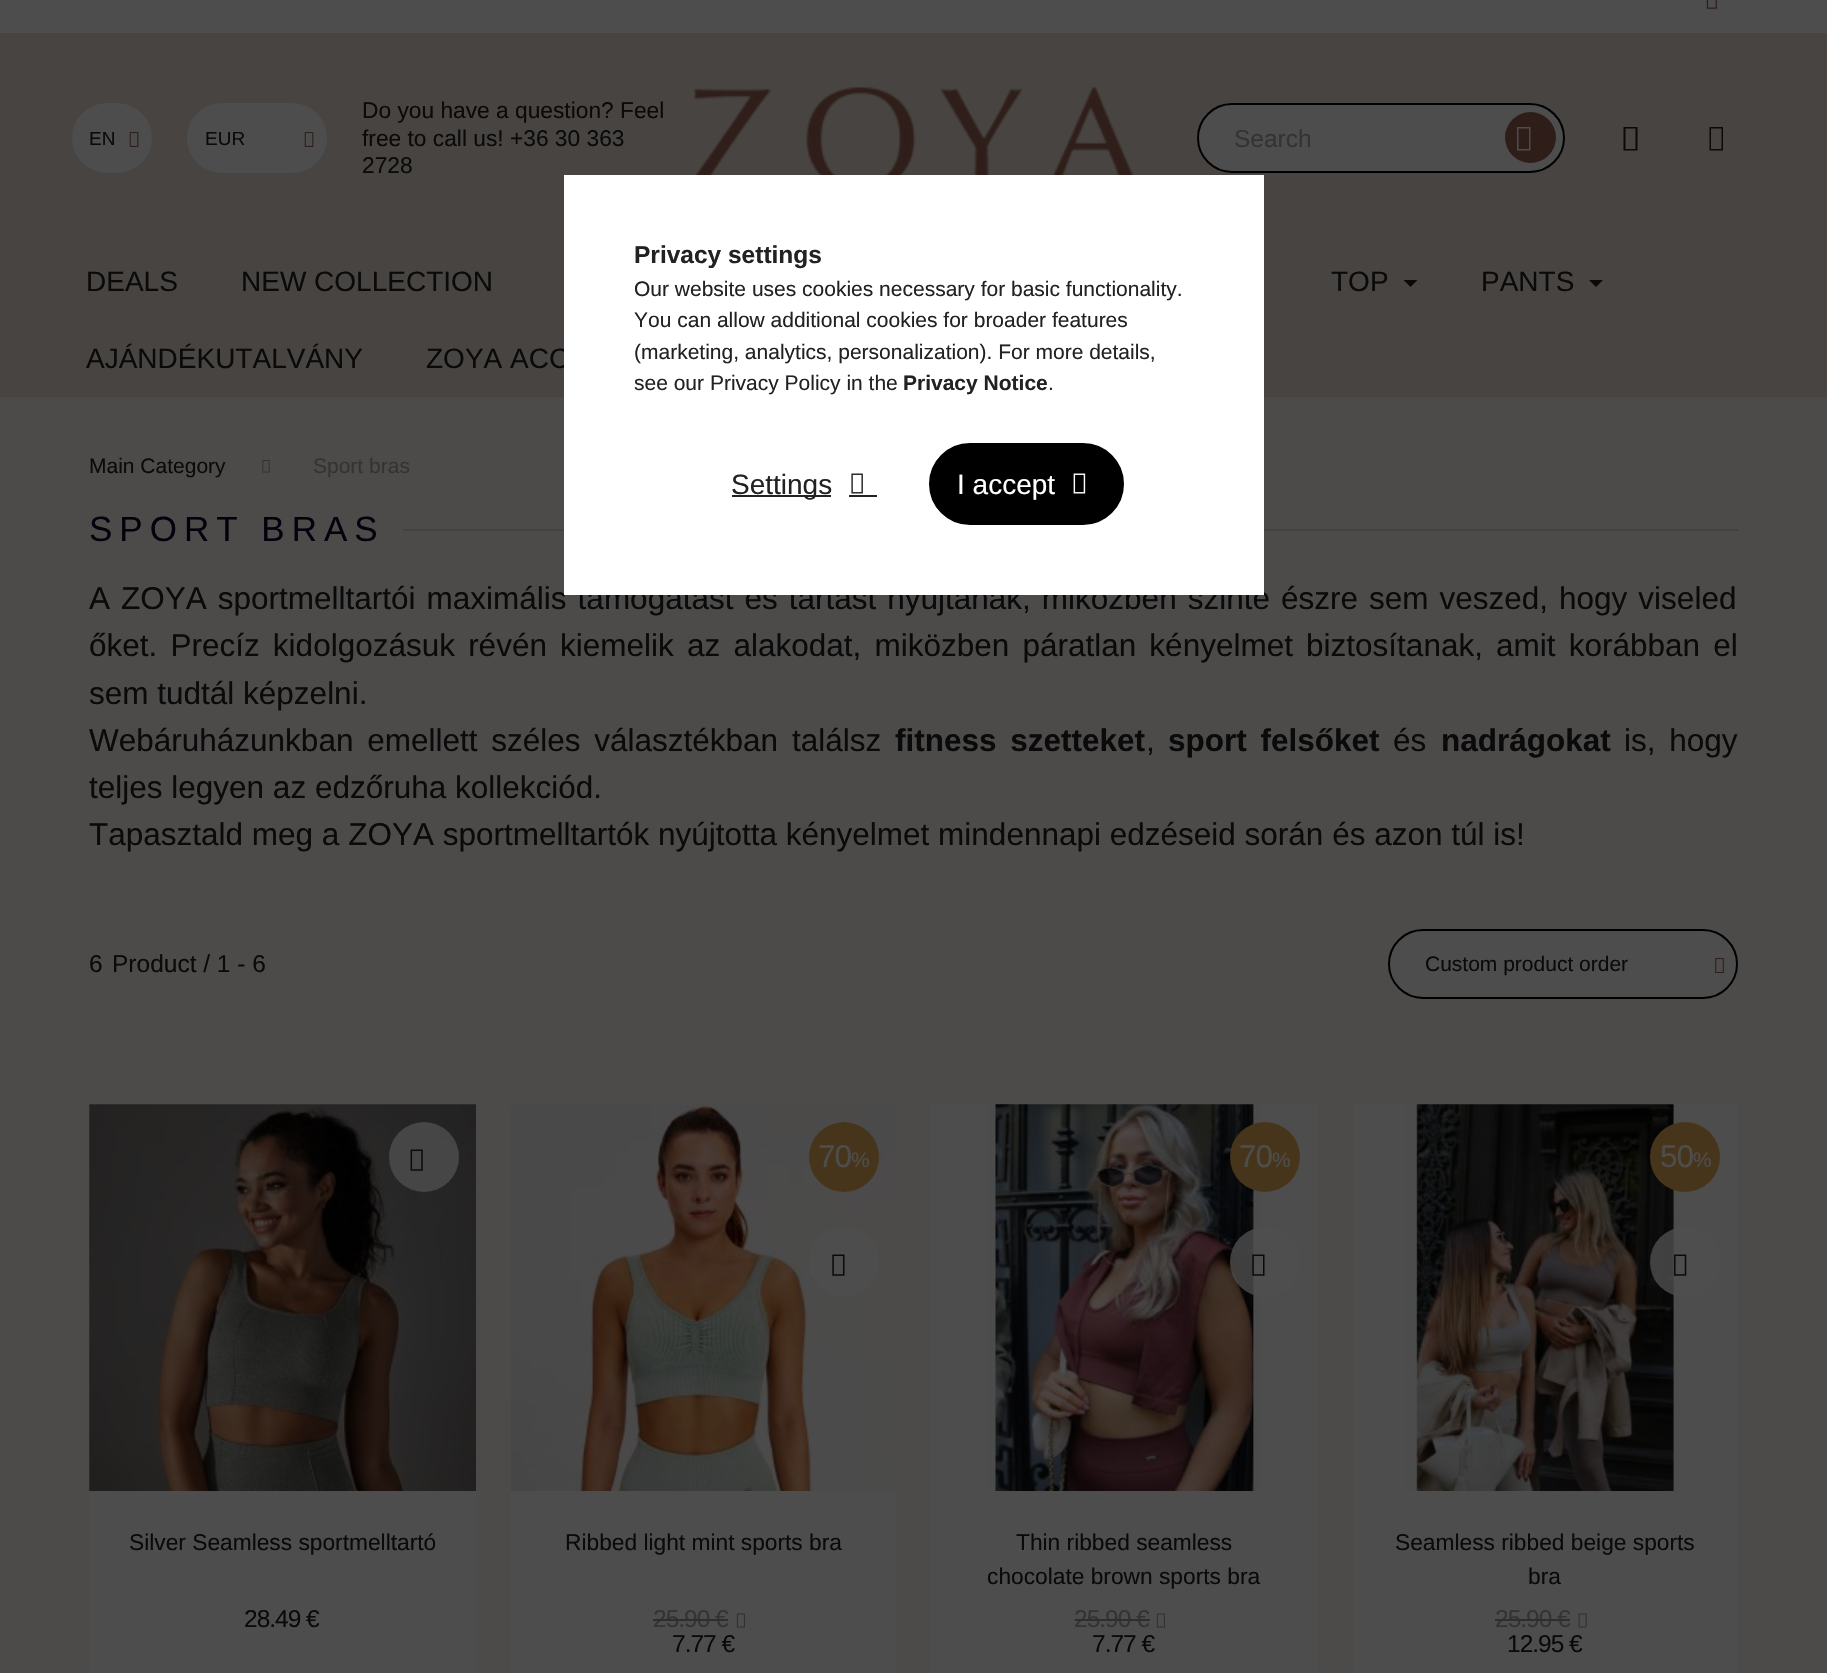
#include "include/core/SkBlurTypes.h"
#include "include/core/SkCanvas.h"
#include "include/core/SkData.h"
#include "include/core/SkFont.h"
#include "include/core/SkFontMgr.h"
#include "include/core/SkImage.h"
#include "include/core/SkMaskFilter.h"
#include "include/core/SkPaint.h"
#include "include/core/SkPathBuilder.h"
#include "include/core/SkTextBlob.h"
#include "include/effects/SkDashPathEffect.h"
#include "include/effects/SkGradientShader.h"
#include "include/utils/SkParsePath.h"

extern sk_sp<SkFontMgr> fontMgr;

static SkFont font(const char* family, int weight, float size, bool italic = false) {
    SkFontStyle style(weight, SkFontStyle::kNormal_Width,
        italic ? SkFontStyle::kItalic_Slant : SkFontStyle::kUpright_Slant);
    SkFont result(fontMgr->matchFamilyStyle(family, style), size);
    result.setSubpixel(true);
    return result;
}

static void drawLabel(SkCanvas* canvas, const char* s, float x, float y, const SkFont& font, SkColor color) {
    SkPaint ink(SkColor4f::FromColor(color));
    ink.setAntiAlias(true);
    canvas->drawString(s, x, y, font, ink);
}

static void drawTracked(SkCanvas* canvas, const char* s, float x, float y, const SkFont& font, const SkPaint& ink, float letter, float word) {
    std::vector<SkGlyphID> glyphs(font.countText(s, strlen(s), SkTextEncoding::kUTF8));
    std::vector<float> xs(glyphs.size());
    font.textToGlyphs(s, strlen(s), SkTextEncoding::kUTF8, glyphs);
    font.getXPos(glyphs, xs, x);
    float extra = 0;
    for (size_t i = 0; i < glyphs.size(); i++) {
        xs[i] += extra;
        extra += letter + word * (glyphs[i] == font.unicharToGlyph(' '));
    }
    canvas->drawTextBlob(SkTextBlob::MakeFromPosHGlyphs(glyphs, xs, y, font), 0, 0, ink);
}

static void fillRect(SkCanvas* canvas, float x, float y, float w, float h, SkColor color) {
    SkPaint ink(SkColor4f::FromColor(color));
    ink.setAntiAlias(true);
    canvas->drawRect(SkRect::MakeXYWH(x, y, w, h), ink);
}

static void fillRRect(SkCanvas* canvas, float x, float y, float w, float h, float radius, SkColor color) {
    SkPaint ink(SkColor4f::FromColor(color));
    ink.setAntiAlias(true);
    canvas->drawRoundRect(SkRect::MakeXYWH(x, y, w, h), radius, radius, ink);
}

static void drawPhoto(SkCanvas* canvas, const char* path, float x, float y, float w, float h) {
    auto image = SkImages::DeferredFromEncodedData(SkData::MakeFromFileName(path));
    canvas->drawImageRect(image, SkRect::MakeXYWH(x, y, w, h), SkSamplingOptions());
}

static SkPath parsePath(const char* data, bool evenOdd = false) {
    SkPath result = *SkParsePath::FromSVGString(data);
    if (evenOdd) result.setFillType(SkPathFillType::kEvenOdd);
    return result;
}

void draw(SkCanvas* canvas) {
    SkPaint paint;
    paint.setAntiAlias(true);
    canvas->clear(0xFF4D4B4A);
    fillRect(canvas, 0, 0, 1827, 33, 0xFF4D4D4D);
    drawPhoto(canvas, "assets/img1.png", 1706, 0, 11, 9);
    fillRect(canvas, 0, 33, 1827, 364, 0xFF474441);
    fillRRect(canvas, 72, 103, 80, 70, 35, 0xFF4D4D4D);
    SkFont font1 = font("Liberation Sans", 400, 19);
    drawLabel(canvas, "EN", 89, 145, font1, 0xFF0A0A0A);
    drawPhoto(canvas, "assets/img2.png", 129, 132, 10, 15);
    fillRRect(canvas, 187, 103, 140, 70, 35, 0xFF4D4D4D);
    drawLabel(canvas, "EUR", 205, 145, font1, 0xFF0A0A0A);
    drawPhoto(canvas, "assets/img2.png", 304, 132, 10, 15);
    SkFont font2 = font("Liberation Sans", 400, 22.75f);
    drawLabel(canvas, "Do you have a question? Feel", 362, 118, font2, 0xFF0A0A0A);
    drawLabel(canvas, "free to call us! +36 30 363", 362, 146, font2, 0xFF0A0A0A);
    drawLabel(canvas, "2728", 362, 173, font2, 0xFF0A0A0A);
    drawPhoto(canvas, "assets/img3.png", 693, 86, 442, 89);
    paint.setColor(0xFF4D4D4D);
    canvas->drawRoundRect(SkRect::MakeXYWH(1198, 104, 366, 68), 34, 34, paint);
    paint.setStroke(true);
    paint.setStrokeWidth(2);
    paint.setColor(0xFF000000);
    canvas->drawRoundRect(SkRect::MakeXYWH(1198, 104, 366, 68), 34, 34, paint);
    SkFont font3 = font("Liberation Sans", 400, 24.5f);
    drawLabel(canvas, "Search", 1234, 147, font3, 0xFF333333);
    paint.setStroke(false);
    paint.setColor(0xFF2E1D18);
    canvas->drawCircle(1530.5f, 137.5f, 25.5f, paint);
    paint.setColor(0xFF4D4D4D);
    canvas->drawPath(parsePath("M1517 150.5V127H1530.5V150.5ZM1518.5 149H1529V128.5H1518.5Z"), paint);
    paint.setColor(0xFF0A0A0A);
    canvas->drawPath(parsePath("M1623.5 150.5V127H1637.5V150.5ZM1625.5 149H1635.5V128.5H1625.5Z"), paint);
    canvas->drawPath(parsePath("M1709.5 150.5V127H1723V150.5ZM1711 149H1721.5V128.5H1711Z"), paint);
    SkFont font4 = font("Liberation Sans", 400, 28);
    drawLabel(canvas, "DEALS", 86, 291, font4, 0xFF0A0A0A);
    drawLabel(canvas, "NEW COLLECTION", 241, 291, font4, 0xFF0A0A0A);
    drawLabel(canvas, "TOP", 1331, 291, font4, 0xFF0A0A0A);
    canvas->drawPath(parsePath("M1403.5 280H1417.5L1410.5 287Z"), paint);
    drawLabel(canvas, "PANTS", 1481, 291, font4, 0xFF0A0A0A);
    canvas->drawPath(parsePath("M1589 280H1603L1596 287Z"), paint);
    drawLabel(canvas, "AJÁNDÉKUTALVÁNY", 86, 368, font4, 0xFF0A0A0A);
    drawLabel(canvas, "ZOYA ACC", 426, 368, font4, 0xFF0A0A0A);
    SkFont font5 = font("Liberation Sans", 400, 21);
    drawLabel(canvas, "Main Category", 89, 473, font5, 0xFF0A0A0A);
    drawPhoto(canvas, "assets/img4.png", 262, 460, 8, 13);
    drawLabel(canvas, "Sport bras", 313, 473, font5, 0xFF333333);
    SkFont font6 = font("Liberation Sans", 400, 35);
    paint.setColor(0xFF02010C);
    drawTracked(canvas, "SPORT BRAS", 89, 541, font6, paint, 7, 0);
    fillRect(canvas, 403, 529, 1335, 2, 0xFF434241);
    SkFont font7 = font("Liberation Sans", 400, 31.5f);
    paint.setColor(0xFF0A0A0A);
    drawTracked(canvas, "A ZOYA sportmelltartói maximális támogatást és tartást nyújtanak, miközben szinte észre sem veszed, hogy viseled", 89, 609, font7, paint, 0, 2.25f);
    drawTracked(canvas, "őket. Precíz kidolgozásuk révén kiemelik az alakodat, miközben páratlan kényelmet biztosítanak, amit korábban el", 89, 656, font7, paint, 0, 4.4f);
    drawLabel(canvas, "sem tudtál képzelni.", 89, 704, font7, 0xFF0A0A0A);
    drawTracked(canvas, "Webáruházunkban emellett széles választékban találsz", 89, 751, font7, paint, 0, 5);
    SkFont font8 = font("Liberation Sans", 700, 31.5f);
    drawTracked(canvas, "fitness szetteket", 895, 751, font8, paint, 0, 5);
    drawLabel(canvas, ",", 1146, 751, font7, 0xFF0A0A0A);
    drawTracked(canvas, "sport felsőket", 1168, 751, font8, paint, 0, 5);
    drawLabel(canvas, "és", 1393, 751, font7, 0xFF0A0A0A);
    drawLabel(canvas, "nadrágokat", 1441, 751, font8, 0xFF0A0A0A);
    drawTracked(canvas, "is, hogy", 1624, 751, font7, paint, 0, 5);
    drawLabel(canvas, "teljes legyen az edzőruha kollekciód.", 89, 798, font7, 0xFF0A0A0A);
    drawLabel(canvas, "Tapasztald meg a ZOYA sportmelltartók nyújtotta kényelmet mindennapi edzéseid során és azon túl is!", 89, 845, font7, 0xFF0A0A0A);
    drawLabel(canvas, "6", 89, 972, font3, 0xFF0A0A0A);
    drawLabel(canvas, "Product / 1 - 6", 112, 972, font3, 0xFF0A0A0A);
    paint.setColor(0xFF4D4D4D);
    canvas->drawRoundRect(SkRect::MakeXYWH(1389, 930, 348, 68), 34, 34, paint);
    paint.setStroke(true);
    paint.setColor(0xFF000000);
    canvas->drawRoundRect(SkRect::MakeXYWH(1389, 930, 348, 68), 34, 34, paint);
    drawLabel(canvas, "Custom product order", 1425, 971, font5, 0xFF0A0A0A);
    drawPhoto(canvas, "assets/img5.png", 1715, 958, 9, 15);
    fillRect(canvas, 89, 1104, 387, 569, 0xFF4D4D4D);
    drawPhoto(canvas, "assets/img6.png", 89, 1104, 387, 387);
    paint.setStroke(false);
    paint.setColor(0xCC4D4D4D);
    canvas->drawCircle(424, 1157, 35, paint);
    drawPhoto(canvas, "assets/img7.png", 410, 1149, 13, 22);
    drawLabel(canvas, "Silver Seamless sportmelltartó", 129, 1550, font2, 0xFF0A0A0A);
    paint.setColor(0xFF0A0A0A);
    drawTracked(canvas, "28.49 €", 244, 1627, font3, paint, -1, 0);
    fillRect(canvas, 511, 1104, 385, 569, 0xFF4D4D4D);
    drawPhoto(canvas, "assets/img8.png", 511, 1104, 385, 387);
    paint.setColor(0xFF47351B);
    canvas->drawCircle(844, 1157, 35, paint);
    paint.setColor(0xFF4D4D4D);
    drawTracked(canvas, "70", 818, 1167, font7, paint, -1, 0);
    drawTracked(canvas, "%", 851, 1167, font5, paint, -1, 0);
    paint.setColor(0xCC4D4D4D);
    canvas->drawCircle(844, 1262, 35, paint);
    drawPhoto(canvas, "assets/img9.png", 832, 1254, 13, 22);
    drawLabel(canvas, "Ribbed light mint sports bra", 565, 1550, font2, 0xFF0A0A0A);
    paint.setColor(0xFF333333);
    drawTracked(canvas, "25.90 €", 653, 1627, font3, paint, -1, 0);
    fillRect(canvas, 653, 1619, 75, 2, 0xFF2E2E2E);
    drawPhoto(canvas, "assets/img10.png", 736, 1613, 9, 15);
    paint.setColor(0xFF0A0A0A);
    drawTracked(canvas, "7.77 €", 672, 1652, font3, paint, -1, 0);
    fillRect(canvas, 931, 1104, 387, 569, 0xFF4D4D4D);
    drawPhoto(canvas, "assets/img11.png", 986, 1104, 274, 387);
    paint.setColor(0xFF47351B);
    canvas->drawCircle(1265, 1157, 35, paint);
    paint.setColor(0xFF4D4D4D);
    drawTracked(canvas, "70", 1239, 1167, font7, paint, -1, 0);
    drawTracked(canvas, "%", 1272, 1167, font5, paint, -1, 0);
    paint.setColor(0xCC4D4D4D);
    canvas->drawCircle(1265, 1262, 35, paint);
    drawPhoto(canvas, "assets/img12.png", 1252, 1254, 13, 22);
    drawLabel(canvas, "Thin ribbed seamless", 1016, 1550, font2, 0xFF0A0A0A);
    drawLabel(canvas, "chocolate brown sports bra", 987, 1584, font2, 0xFF0A0A0A);
    paint.setColor(0xFF333333);
    drawTracked(canvas, "25.90 €", 1074, 1627, font3, paint, -1, 0);
    fillRect(canvas, 1075, 1619, 75, 2, 0xFF2E2E2E);
    drawPhoto(canvas, "assets/img10.png", 1156, 1613, 9, 15);
    paint.setColor(0xFF0A0A0A);
    drawTracked(canvas, "7.77 €", 1092, 1652, font3, paint, -1, 0);
    fillRect(canvas, 1353, 1104, 385, 569, 0xFF4D4D4D);
    drawPhoto(canvas, "assets/img13.png", 1405, 1104, 274, 387);
    paint.setColor(0xFF47351B);
    canvas->drawCircle(1685, 1157, 35, paint);
    paint.setColor(0xFF4D4D4D);
    drawTracked(canvas, "50", 1660, 1167, font7, paint, -1, 0);
    drawTracked(canvas, "%", 1693, 1167, font5, paint, -1, 0);
    paint.setColor(0xCC4D4D4D);
    canvas->drawCircle(1685, 1262, 35, paint);
    drawPhoto(canvas, "assets/img14.png", 1674, 1254, 13, 22);
    drawLabel(canvas, "Seamless ribbed beige sports", 1395, 1550, font2, 0xFF0A0A0A);
    drawLabel(canvas, "bra", 1528, 1584, font2, 0xFF0A0A0A);
    paint.setColor(0xFF333333);
    drawTracked(canvas, "25.90 €", 1495, 1627, font3, paint, -1, 0);
    fillRect(canvas, 1495, 1619, 75, 2, 0xFF2E2E2E);
    drawPhoto(canvas, "assets/img15.png", 1578, 1613, 9, 15);
    paint.setColor(0xFF0A0A0A);
    drawTracked(canvas, "12.95 €", 1507, 1652, font3, paint, -1, 0);
    fillRect(canvas, 564, 175, 700, 420, 0xFFFFFFFF);
    SkFont font9 = font("Liberation Sans", 700, 24.5f);
    drawLabel(canvas, "Privacy settings", 634, 263, font9, 0xFF222222);
    drawLabel(canvas, "Our website uses cookies necessary for basic functionality.", 634, 296, font5, 0xFF222222);
    drawLabel(canvas, "You can allow additional cookies for broader features", 634, 327, font5, 0xFF222222);
    drawLabel(canvas, "(marketing, analytics, personalization). For more details,", 634, 359, font5, 0xFF222222);
    drawLabel(canvas, "see our Privacy Policy in the", 634, 390, font5, 0xFF222222);
    SkFont font10 = font("Liberation Sans", 700, 21);
    drawLabel(canvas, "Privacy Notice", 903, 390, font10, 0xFF222222);
    drawLabel(canvas, ".", 1048, 390, font5, 0xFF222222);
    fillRect(canvas, 732, 495, 99, 2, 0xFF222222);
    drawLabel(canvas, "Settings", 731, 494, font4, 0xFF222222);
    drawPhoto(canvas, "assets/img16.png", 851, 473, 12, 21);
    fillRect(canvas, 849, 495, 28, 2, 0xFF222222);
    paint.setColor(0xFF000000);
    canvas->drawRoundRect(SkRect::MakeXYWH(930, 444, 193, 80), 40, 40, paint);
    paint.setStroke(true);
    canvas->drawRoundRect(SkRect::MakeXYWH(930, 444, 193, 80), 40, 40, paint);
    drawLabel(canvas, "I accept", 957, 494, font4, 0xFFFFFFFF);
    drawPhoto(canvas, "assets/img17.png", 1073, 473, 13, 21);
}
